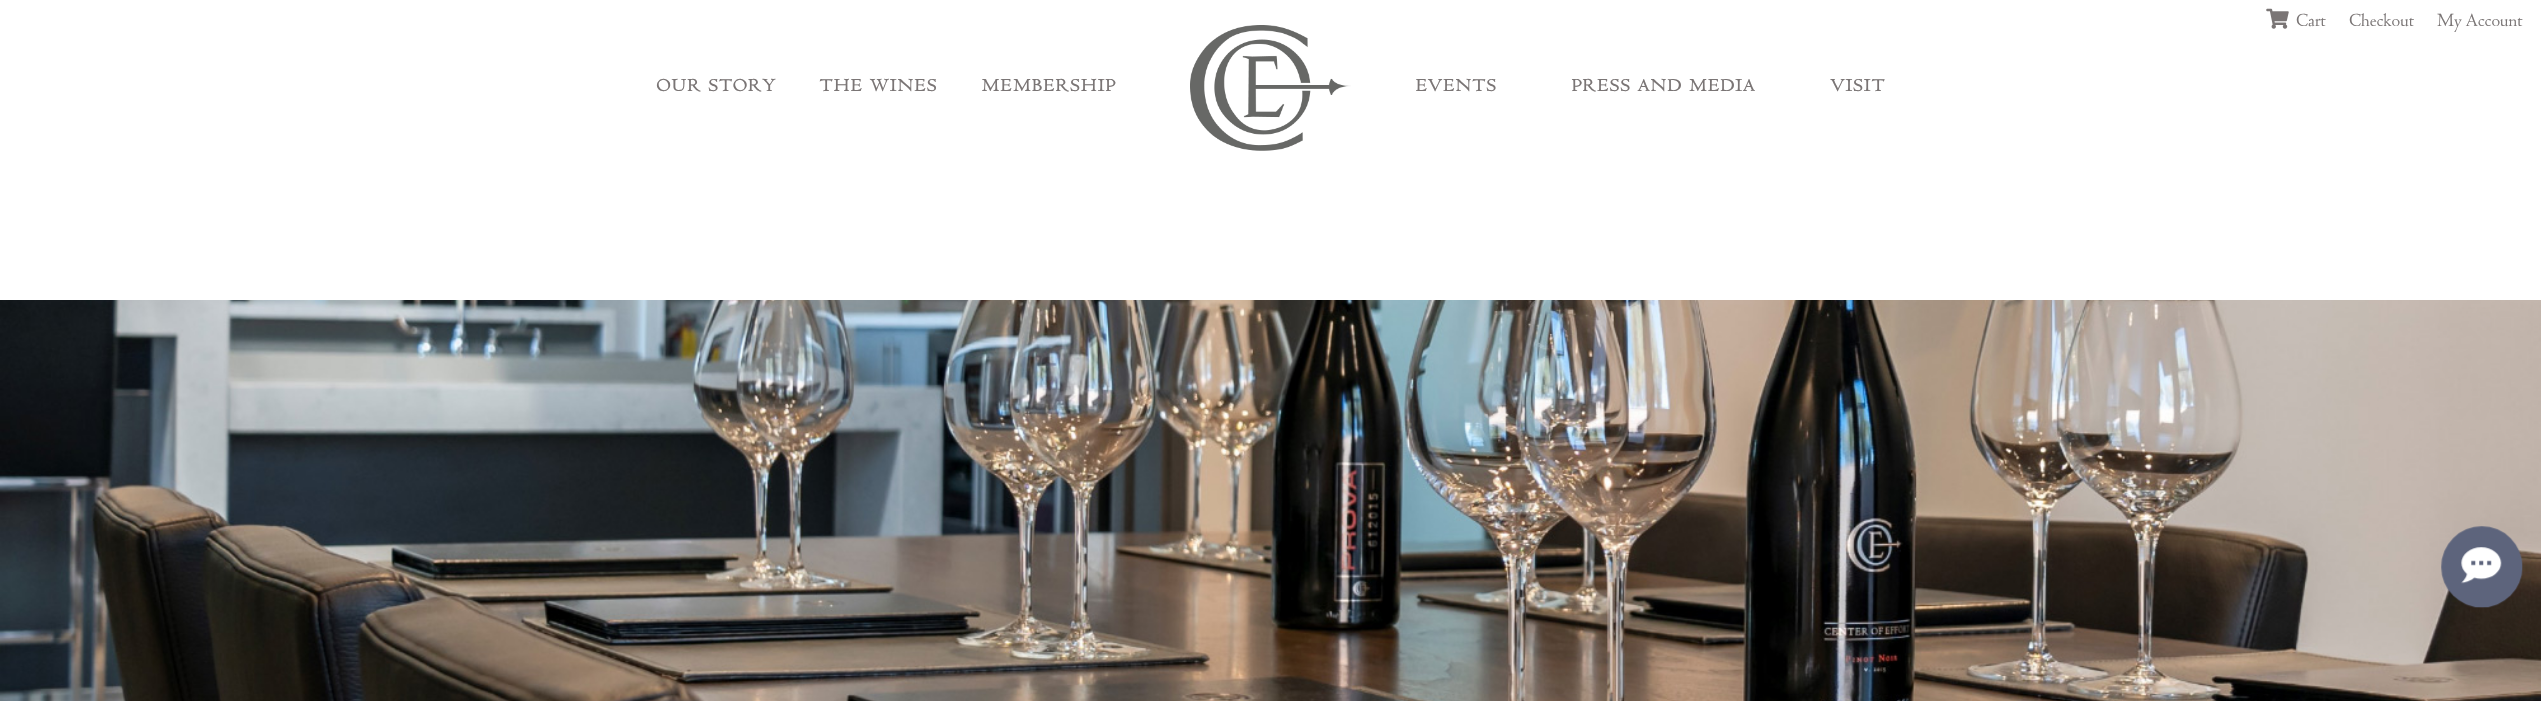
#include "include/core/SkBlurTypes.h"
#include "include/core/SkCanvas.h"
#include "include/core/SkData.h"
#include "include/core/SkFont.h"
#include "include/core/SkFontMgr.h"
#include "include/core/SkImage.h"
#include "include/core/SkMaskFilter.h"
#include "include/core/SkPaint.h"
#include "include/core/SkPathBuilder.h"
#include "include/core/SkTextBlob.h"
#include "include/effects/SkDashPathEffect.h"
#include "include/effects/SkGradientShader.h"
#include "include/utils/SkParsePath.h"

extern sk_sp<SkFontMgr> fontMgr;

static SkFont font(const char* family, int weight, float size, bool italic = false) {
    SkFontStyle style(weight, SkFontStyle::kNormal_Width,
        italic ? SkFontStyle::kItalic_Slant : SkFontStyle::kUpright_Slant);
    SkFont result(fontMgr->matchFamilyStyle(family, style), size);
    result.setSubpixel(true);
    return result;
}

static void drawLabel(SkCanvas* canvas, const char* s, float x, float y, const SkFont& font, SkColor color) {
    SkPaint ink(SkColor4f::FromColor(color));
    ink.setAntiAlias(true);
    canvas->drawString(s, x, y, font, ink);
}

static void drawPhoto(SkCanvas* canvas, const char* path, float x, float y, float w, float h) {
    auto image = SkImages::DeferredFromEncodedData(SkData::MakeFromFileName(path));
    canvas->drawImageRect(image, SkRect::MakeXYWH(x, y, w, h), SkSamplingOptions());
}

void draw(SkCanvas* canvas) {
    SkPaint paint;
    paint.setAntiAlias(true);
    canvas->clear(0xFFFFFFFF);
    drawPhoto(canvas, "assets/img1.png", 2266, 8, 23, 21);
    SkFont font1 = font("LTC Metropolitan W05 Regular", 400, 20);
    drawLabel(canvas, "Cart", 2296, 26, font1, 0xFF7A7575);
    drawLabel(canvas, "Checkout", 2349, 26, font1, 0xFF7A7575);
    drawLabel(canvas, "My Account", 2437, 26, font1, 0xFF7A7575);
    drawPhoto(canvas, "assets/img2.png", 1190, 25, 161, 126);
    SkFont font2 = font("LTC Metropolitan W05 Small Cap", 400, 30);
    drawLabel(canvas, "our story", 656, 91, font2, 0xFF7A7575);
    drawLabel(canvas, "the wines", 819, 91, font2, 0xFF7A7575);
    drawLabel(canvas, "membership", 981, 91, font2, 0xFF7A7575);
    drawLabel(canvas, "events", 1415, 91, font2, 0xFF7A7575);
    drawLabel(canvas, "press and media", 1571, 91, font2, 0xFF7A7575);
    drawLabel(canvas, "visit", 1830, 91, font2, 0xFF7A7575);
    drawPhoto(canvas, "assets/img3.png", 0, 300, 2541, 401);
    drawPhoto(canvas, "assets/img4.png", 2441, 526, 82, 82);
}
